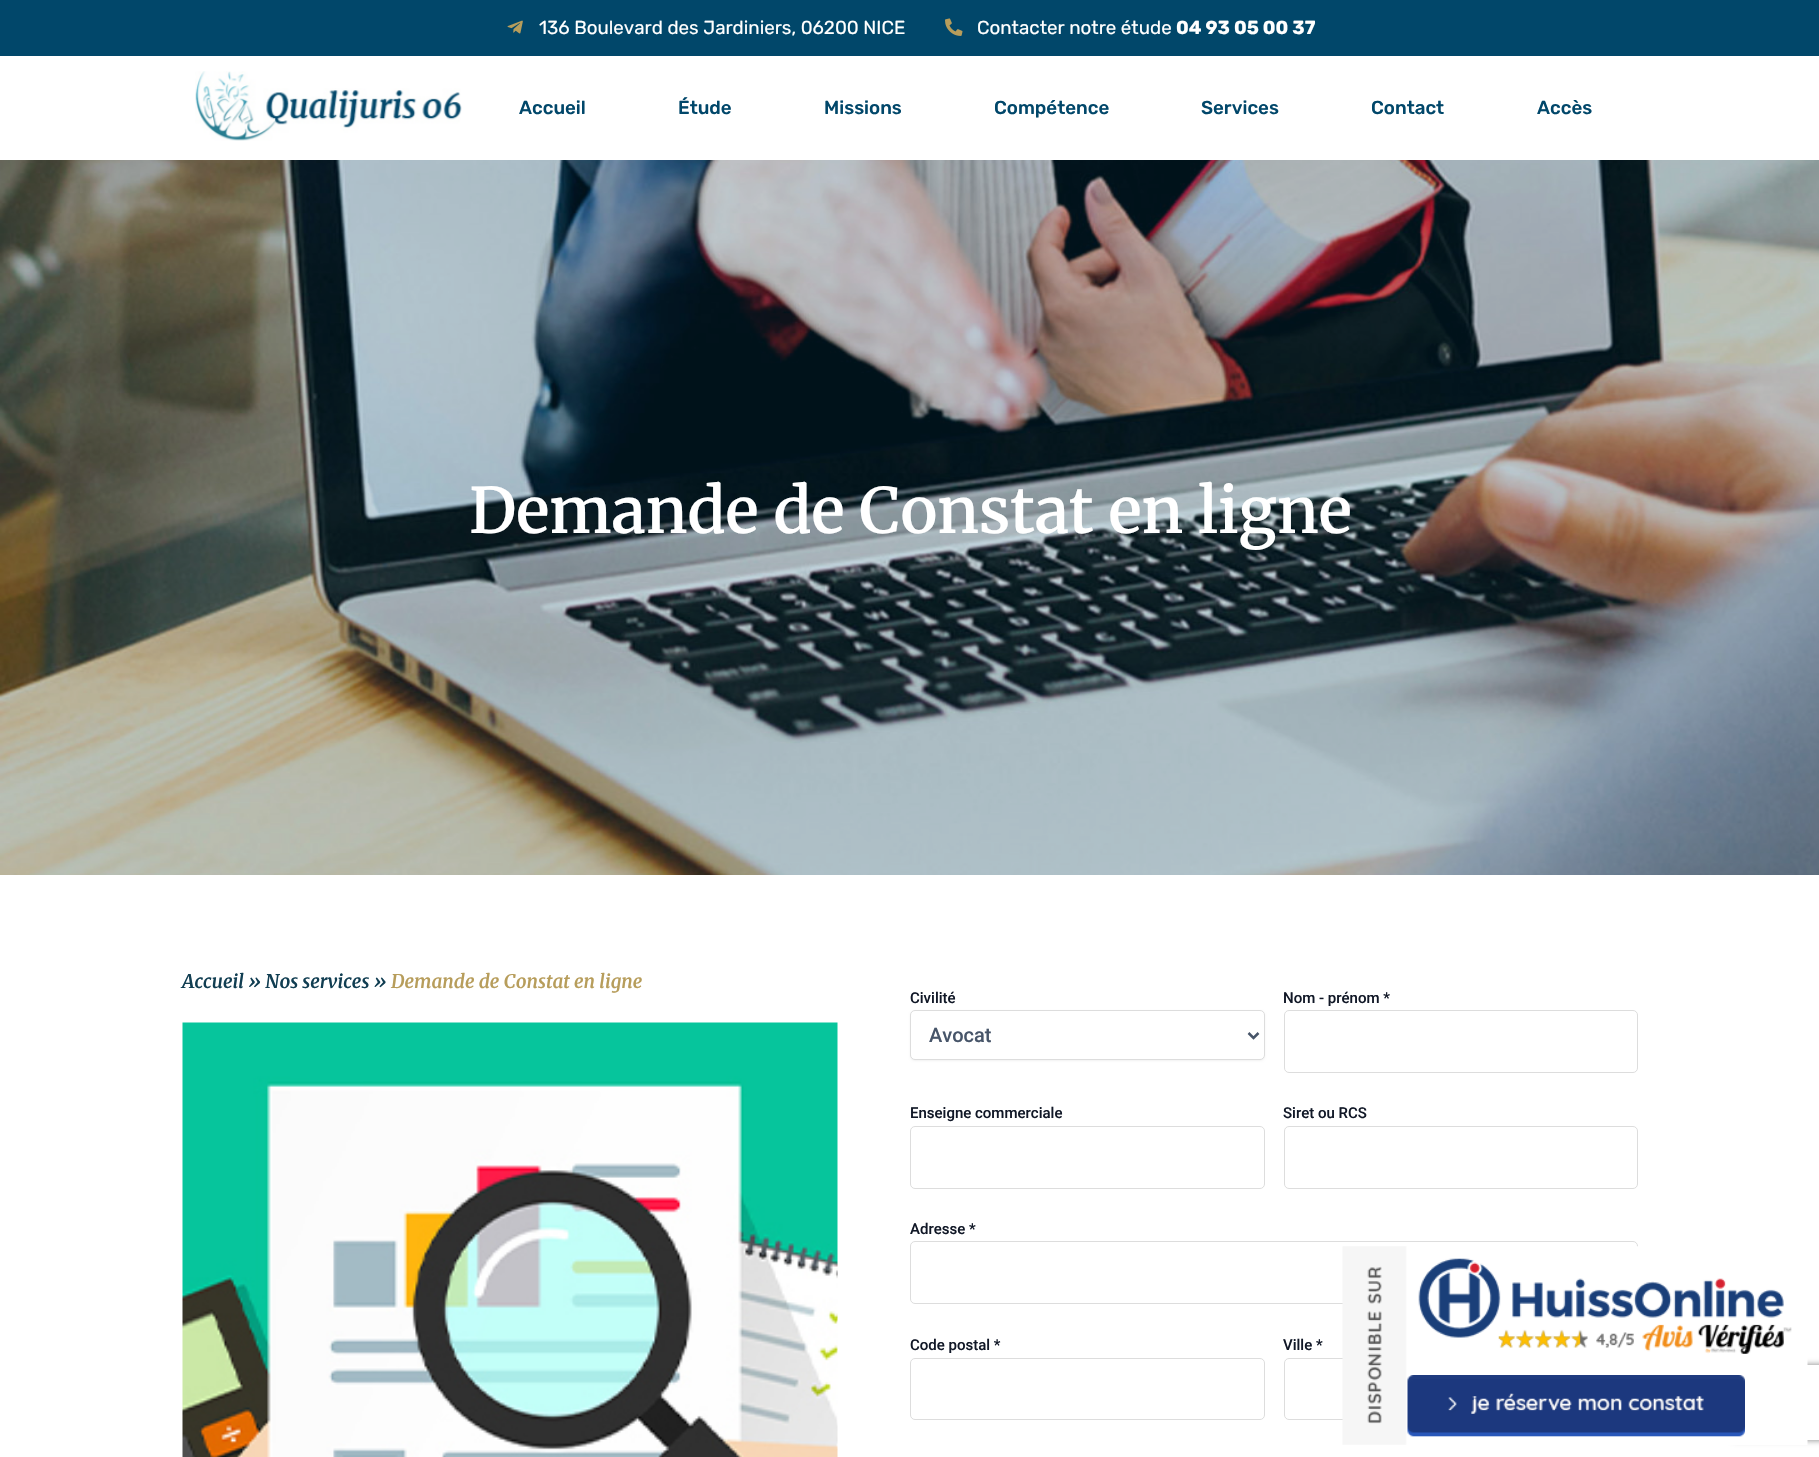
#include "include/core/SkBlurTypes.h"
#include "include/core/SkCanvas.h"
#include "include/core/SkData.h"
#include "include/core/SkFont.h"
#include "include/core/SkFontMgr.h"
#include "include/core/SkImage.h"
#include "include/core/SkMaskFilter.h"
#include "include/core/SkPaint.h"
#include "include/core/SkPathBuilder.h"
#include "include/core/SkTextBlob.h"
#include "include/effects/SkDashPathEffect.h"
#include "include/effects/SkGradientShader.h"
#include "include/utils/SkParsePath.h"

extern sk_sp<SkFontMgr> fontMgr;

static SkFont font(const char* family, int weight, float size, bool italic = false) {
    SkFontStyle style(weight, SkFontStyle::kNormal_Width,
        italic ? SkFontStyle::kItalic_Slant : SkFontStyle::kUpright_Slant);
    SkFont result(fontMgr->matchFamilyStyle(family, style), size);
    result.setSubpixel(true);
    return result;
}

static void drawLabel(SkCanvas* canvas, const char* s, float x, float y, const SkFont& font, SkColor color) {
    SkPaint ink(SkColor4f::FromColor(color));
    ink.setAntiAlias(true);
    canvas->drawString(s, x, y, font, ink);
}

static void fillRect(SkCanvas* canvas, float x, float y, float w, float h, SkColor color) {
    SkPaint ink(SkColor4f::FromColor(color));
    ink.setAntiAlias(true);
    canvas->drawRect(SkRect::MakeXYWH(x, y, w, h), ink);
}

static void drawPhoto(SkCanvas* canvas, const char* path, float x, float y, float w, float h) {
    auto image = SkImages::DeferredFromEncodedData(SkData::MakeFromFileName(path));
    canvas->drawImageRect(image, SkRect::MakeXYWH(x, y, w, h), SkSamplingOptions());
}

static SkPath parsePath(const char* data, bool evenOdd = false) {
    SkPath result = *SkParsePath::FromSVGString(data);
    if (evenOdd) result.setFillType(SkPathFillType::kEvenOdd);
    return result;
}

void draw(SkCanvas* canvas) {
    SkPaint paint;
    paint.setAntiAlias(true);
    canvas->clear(0xFFFFFFFF);
    fillRect(canvas, 0, 0, 1819, 56, 0xFF01476A);
    drawPhoto(canvas, "assets/img1.png", 507, 20, 16, 14);
    SkFont font1 = font("Rubik", 400, 18.75f);
    drawLabel(canvas, "136 Boulevard des Jardiniers, 06200 NICE", 539, 34, font1, 0xFFFFFFFF);
    drawPhoto(canvas, "assets/img2.png", 945, 18, 18, 18);
    drawLabel(canvas, "Contacter notre étude", 977, 34, font1, 0xFFFFFFFF);
    SkFont font2 = font("Rubik", 700, 18.75f);
    drawLabel(canvas, "04 93 05 00 37", 1176, 34, font2, 0xFFFFFFFF);
    drawPhoto(canvas, "assets/img3.png", 195, 71, 267, 70);
    SkFont font3 = font("Rubik", 500, 18.75f);
    drawLabel(canvas, "Accueil", 519, 114, font3, 0xFF01476A);
    drawLabel(canvas, "Étude", 678, 114, font3, 0xFF01476A);
    drawLabel(canvas, "Missions", 824, 114, font3, 0xFF01476A);
    drawLabel(canvas, "Compétence", 994, 114, font3, 0xFF01476A);
    drawLabel(canvas, "Services", 1201, 114, font3, 0xFF01476A);
    drawLabel(canvas, "Contact", 1371, 114, font3, 0xFF01476A);
    drawLabel(canvas, "Accès", 1537, 114, font3, 0xFF01476A);
    drawPhoto(canvas, "assets/img4.png", 0, 160, 1819, 715);
    SkFont font4 = font("Merriweather", 600, 62.5f);
    drawLabel(canvas, "Demande de Constat en ligne", 469, 533, font4, 0xFFFFFFFF);
    SkFont font5 = font("Merriweather", 600, 18.75f, true);
    drawLabel(canvas, "Accueil » Nos services »", 182, 988, font5, 0xFF113E52);
    drawLabel(canvas, "Demande de Constat en ligne", 391, 988, font5, 0xFFB79D5B);
    drawPhoto(canvas, "assets/img5.png", 182, 1022, 656, 435);
    SkFont font6 = font("Roboto", 500, 15);
    drawLabel(canvas, "Civilité", 910, 1003, font6, 0xFF111827);
    paint.setColor(0x0D000000);
    paint.setMaskFilter(SkMaskFilter::MakeBlur(kNormal_SkBlurStyle, 1));
    canvas->drawRoundRect(SkRect::MakeXYWH(910, 1011, 355, 50), 5, 5, paint);
    paint.setMaskFilter(nullptr);
    paint.setColor(0xFFFFFFFF);
    canvas->drawRoundRect(SkRect::MakeXYWH(910.5f, 1010.5f, 354, 49), 4.5f, 4.5f, paint);
    paint.setStroke(true);
    paint.setStrokeWidth(1);
    paint.setColor(0xFFDDDDDD);
    canvas->drawRoundRect(SkRect::MakeXYWH(910.5f, 1010.5f, 354, 49), 4.5f, 4.5f, paint);
    paint.setStrokeWidth(2.5f);
    paint.setColor(0xFF475569);
    canvas->drawPath(parsePath("M1248.5 1033L1253.5 1038L1258.5 1033"), paint);
    SkFont font7 = font("Roboto", 500, 20);
    drawLabel(canvas, "Avocat", 929, 1042, font7, 0xFF475569);
    drawLabel(canvas, "Nom - prénom *", 1283, 1003, font6, 0xFF111827);
    paint.setStrokeWidth(1);
    paint.setColor(0xFFDDDDDD);
    canvas->drawRoundRect(SkRect::MakeXYWH(1284.5f, 1010.5f, 353, 62), 4.5f, 4.5f, paint);
    drawLabel(canvas, "Enseigne commerciale", 910, 1118, font6, 0xFF111827);
    canvas->drawRoundRect(SkRect::MakeXYWH(910.5f, 1126.5f, 354, 62), 4.5f, 4.5f, paint);
    drawLabel(canvas, "Siret ou RCS", 1283, 1118, font6, 0xFF111827);
    canvas->drawRoundRect(SkRect::MakeXYWH(1284.5f, 1126.5f, 353, 62), 4.5f, 4.5f, paint);
    drawLabel(canvas, "Adresse *", 910, 1234, font6, 0xFF111827);
    canvas->drawRoundRect(SkRect::MakeXYWH(910.5f, 1241.5f, 727, 62), 4.5f, 4.5f, paint);
    drawLabel(canvas, "Code postal *", 910, 1350, font6, 0xFF111827);
    canvas->drawRoundRect(SkRect::MakeXYWH(910.5f, 1358.5f, 354, 61), 4.5f, 4.5f, paint);
    drawLabel(canvas, "Ville *", 1283, 1350, font6, 0xFF111827);
    canvas->drawRoundRect(SkRect::MakeXYWH(1284.5f, 1358.5f, 353, 61), 4.5f, 4.5f, paint);
    canvas->save();
    canvas->clipPath(parsePath("M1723 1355H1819V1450H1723ZM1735.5 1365H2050.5C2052 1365 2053 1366 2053 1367.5V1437.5C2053 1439 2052 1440 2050.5 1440H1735.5C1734 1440 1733 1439 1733 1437.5V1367.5C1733 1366 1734 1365 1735.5 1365Z", true), true);
    paint.setStroke(false);
    paint.setColor(0xFF808080);
    paint.setMaskFilter(SkMaskFilter::MakeBlur(kNormal_SkBlurStyle, 3));
    canvas->drawRoundRect(SkRect::MakeXYWH(1733, 1365, 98, 75), 2.5f, 2.5f, paint);
    paint.setMaskFilter(nullptr);
    canvas->restore();
    drawPhoto(canvas, "assets/img6.png", 1342, 1246, 466, 199);
    drawPhoto(canvas, "assets/img7.png", 1407, 1375, 338, 62);
}
